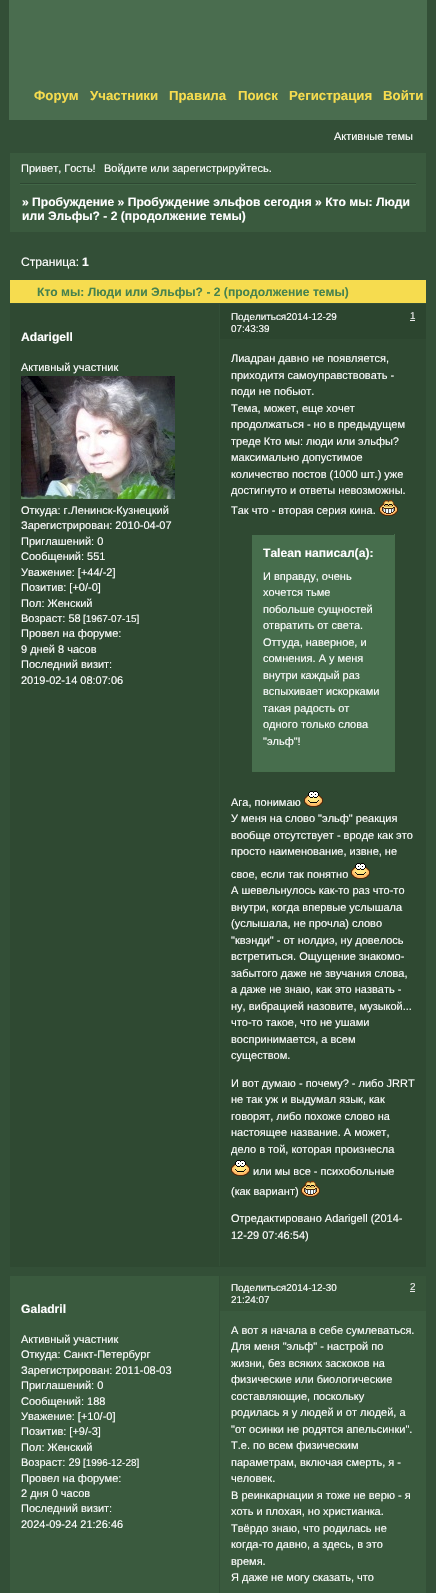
#include "include/core/SkBlurTypes.h"
#include "include/core/SkCanvas.h"
#include "include/core/SkData.h"
#include "include/core/SkFont.h"
#include "include/core/SkFontMgr.h"
#include "include/core/SkImage.h"
#include "include/core/SkMaskFilter.h"
#include "include/core/SkPaint.h"
#include "include/core/SkPathBuilder.h"
#include "include/core/SkTextBlob.h"
#include "include/effects/SkDashPathEffect.h"
#include "include/effects/SkGradientShader.h"
#include "include/utils/SkParsePath.h"

extern sk_sp<SkFontMgr> fontMgr;

static SkFont font(const char* family, int weight, float size, bool italic = false) {
    SkFontStyle style(weight, SkFontStyle::kNormal_Width,
        italic ? SkFontStyle::kItalic_Slant : SkFontStyle::kUpright_Slant);
    SkFont result(fontMgr->matchFamilyStyle(family, style), size);
    result.setSubpixel(true);
    return result;
}

static void drawLabel(SkCanvas* canvas, const char* s, float x, float y, const SkFont& font, SkColor color) {
    SkPaint ink(SkColor4f::FromColor(color));
    ink.setAntiAlias(true);
    canvas->drawString(s, x, y, font, ink);
}

static void fillRect(SkCanvas* canvas, float x, float y, float w, float h, SkColor color) {
    SkPaint ink(SkColor4f::FromColor(color));
    ink.setAntiAlias(true);
    canvas->drawRect(SkRect::MakeXYWH(x, y, w, h), ink);
}

static void drawPhoto(SkCanvas* canvas, const char* path, float x, float y, float w, float h) {
    auto image = SkImages::DeferredFromEncodedData(SkData::MakeFromFileName(path));
    canvas->drawImageRect(image, SkRect::MakeXYWH(x, y, w, h), SkSamplingOptions());
}

void draw(SkCanvas* canvas) {
    SkPaint paint;
    paint.setAntiAlias(true);
    canvas->clear(0xFF334F37);
    fillRect(canvas, 9, 0, 418, 120, 0xFF4A6D4F);
    SkFont font1 = font("Liberation Sans", 700, 13.25f);
    drawLabel(canvas, "Форум", 34, 100, font1, 0xFFF6DC4F);
    drawLabel(canvas, "Участники", 90, 100, font1, 0xFFF6DC4F);
    drawLabel(canvas, "Правила", 169, 100, font1, 0xFFF6DC4F);
    drawLabel(canvas, "Поиск", 238, 100, font1, 0xFFF6DC4F);
    drawLabel(canvas, "Регистрация", 289, 100, font1, 0xFFF6DC4F);
    drawLabel(canvas, "Войти", 383, 100, font1, 0xFFF6DC4F);
    SkFont font2 = font("Liberation Sans", 400, 11);
    drawLabel(canvas, "Активные темы", 334, 140, font2, 0xFFFFFFFF);
    fillRect(canvas, 10, 153, 416, 79, 0xFF3A5A3E);
    drawLabel(canvas, "Привет, Гость!", 21, 172, font2, 0xFFFFFFFF);
    drawLabel(canvas, "Войдите или зарегистрируйтесь.", 104, 172, font2, 0xFFFFFFFF);
    fillRect(canvas, 20, 183, 396, 1, 0xFF2E4732);
    fillRect(canvas, 20, 184, 396, 1, 0xFF416646);
    SkFont font3 = font("Liberation Sans", 700, 12.1f);
    drawLabel(canvas, "» Пробуждение » Пробуждение эльфов сегодня » Кто мы: Люди", 22, 206, font3, 0xFFFFFFFF);
    drawLabel(canvas, "или Эльфы? - 2 (продолжение темы)", 22, 220, font3, 0xFFFFFFFF);
    SkFont font4 = font("Liberation Sans", 400, 12.1f);
    drawLabel(canvas, "Страница:", 21, 266, font4, 0xFFFFFFFF);
    drawLabel(canvas, "1", 82, 266, font3, 0xFFFFFFFF);
    fillRect(canvas, 10, 280, 416, 23, 0xFFF6DC4F);
    drawLabel(canvas, "Кто мы: Люди или Эльфы? - 2 (продолжение темы)", 37, 296, font3, 0xFF46824E);
    fillRect(canvas, 10, 304, 209, 35, 0xFF2F4932);
    fillRect(canvas, 220, 304, 206, 35, 0xFF2C452F);
    SkFont font5 = font("Liberation Sans", 400, 9.9f);
    drawLabel(canvas, "Поделиться2014-12-29", 231, 320, font5, 0xFFFFFFFF);
    drawLabel(canvas, "1", 410, 319, font5, 0xFFEBEBEB);
    fillRect(canvas, 410, 320, 5, 1, 0xFFEBEBEB);
    drawLabel(canvas, "07:43:39", 231, 332, font5, 0xFFFFFFFF);
    fillRect(canvas, 10, 339, 416, 928, 0xFF2F4932);
    drawLabel(canvas, "Adarigell", 21, 341, font3, 0xFFFFFFFF);
    drawLabel(canvas, "Активный участник", 21, 371, font2, 0xFFFFFFFF);
    drawPhoto(canvas, "assets/img1.png", 21, 376, 154, 123);
    drawLabel(canvas, "Откуда: г.Ленинск-Кузнецкий", 21, 514, font2, 0xFFFFFFFF);
    drawLabel(canvas, "Зарегистрирован: 2010-04-07", 21, 529, font2, 0xFFFFFFFF);
    drawLabel(canvas, "Приглашений: 0", 21, 545, font2, 0xFFFFFFFF);
    drawLabel(canvas, "Сообщений: 551", 21, 560, font2, 0xFFFFFFFF);
    drawLabel(canvas, "Уважение: [+44/-2]", 21, 576, font2, 0xFFFFFFFF);
    drawLabel(canvas, "Позитив: [+0/-0]", 21, 591, font2, 0xFFFFFFFF);
    drawLabel(canvas, "Пол: Женский", 21, 607, font2, 0xFFFFFFFF);
    drawLabel(canvas, "Возраст: 58", 21, 622, font2, 0xFFFFFFFF);
    drawLabel(canvas, "[1967-07-15]", 83, 622, font5, 0xFFFFFFFF);
    drawLabel(canvas, "Провел на форуме:", 21, 637, font2, 0xFFFFFFFF);
    drawLabel(canvas, "9 дней 8 часов", 21, 653, font2, 0xFFFFFFFF);
    drawLabel(canvas, "Последний визит:", 21, 668, font2, 0xFFFFFFFF);
    drawLabel(canvas, "2019-02-14 08:07:06", 21, 684, font2, 0xFFFFFFFF);
    fillRect(canvas, 219, 339, 1, 927, 0xFF334F37);
    drawLabel(canvas, "Лиадран давно не появляется,", 231, 362, font2, 0xFFFFFFFF);
    drawLabel(canvas, "приходитя самоуправствовать -", 231, 379, font2, 0xFFFFFFFF);
    drawLabel(canvas, "поди не побьют.", 231, 395, font2, 0xFFFFFFFF);
    drawLabel(canvas, "Тема, может, еще хочет", 231, 412, font2, 0xFFFFFFFF);
    drawLabel(canvas, "продолжаться - но в предыдущем", 231, 428, font2, 0xFFFFFFFF);
    drawLabel(canvas, "треде Кто мы: люди или эльфы?", 231, 445, font2, 0xFFFFFFFF);
    drawLabel(canvas, "максимально допустимое", 231, 461, font2, 0xFFFFFFFF);
    drawLabel(canvas, "количество постов (1000 шт.) уже", 231, 478, font2, 0xFFFFFFFF);
    canvas->save();
    canvas->clipRect(SkRect::MakeXYWH(231, 350, 184, 904));
    drawLabel(canvas, "достигнуто и ответы невозможны.", 231, 494, font2, 0xFFFFFFFF);
    canvas->restore();
    drawLabel(canvas, "Так что - вторая серия кина.", 231, 514, font2, 0xFFFFFFFF);
    drawPhoto(canvas, "assets/img2.png", 379, 500, 19, 16);
    fillRect(canvas, 252, 535, 142, 236, 0xFF476E4D);
    fillRect(canvas, 394, 534, 1, 238, 0xFF466E4B);
    fillRect(canvas, 251, 771, 144, 1, 0xFF466E4B);
    fillRect(canvas, 251, 771, 1, 1, 0xFF2E4732);
    drawLabel(canvas, "Talean написал(а):", 263, 557, font3, 0xFFFFFFFF);
    drawLabel(canvas, "И вправду, очень", 263, 580, font2, 0xFFFFFFFF);
    drawLabel(canvas, "хочется тьме", 263, 596, font2, 0xFFFFFFFF);
    drawLabel(canvas, "побольше сущностей", 263, 613, font2, 0xFFFFFFFF);
    drawLabel(canvas, "отвратить от света.", 263, 629, font2, 0xFFFFFFFF);
    drawLabel(canvas, "Оттуда, наверное, и", 263, 646, font2, 0xFFFFFFFF);
    drawLabel(canvas, "сомнения. А у меня", 263, 662, font2, 0xFFFFFFFF);
    drawLabel(canvas, "внутри каждый раз", 263, 679, font2, 0xFFFFFFFF);
    drawLabel(canvas, "вспыхивает искорками", 263, 695, font2, 0xFFFFFFFF);
    drawLabel(canvas, "такая радость от", 263, 712, font2, 0xFFFFFFFF);
    drawLabel(canvas, "одного только слова", 263, 728, font2, 0xFFFFFFFF);
    drawLabel(canvas, "\"эльф\"!", 263, 745, font2, 0xFFFFFFFF);
    drawLabel(canvas, "Ага, понимаю", 231, 806, font2, 0xFFFFFFFF);
    drawPhoto(canvas, "assets/img3.png", 304, 791, 19, 16);
    drawLabel(canvas, "У меня на слово \"эльф\" реакция", 231, 822, font2, 0xFFFFFFFF);
    drawLabel(canvas, "вообще отсутствует - вроде как это", 231, 839, font2, 0xFFFFFFFF);
    drawLabel(canvas, "просто наименование, извне, не", 231, 855, font2, 0xFFFFFFFF);
    drawLabel(canvas, "свое, если так понятно", 231, 878, font2, 0xFFFFFFFF);
    drawPhoto(canvas, "assets/img3.png", 351, 863, 19, 16);
    drawLabel(canvas, "А шевельнулось как-то раз что-то", 231, 894, font2, 0xFFFFFFFF);
    drawLabel(canvas, "внутри, когда впервые услышала", 231, 911, font2, 0xFFFFFFFF);
    drawLabel(canvas, "(услышала, не прочла) слово", 231, 927, font2, 0xFFFFFFFF);
    drawLabel(canvas, "\"квэнди\" - от нолдиэ, ну довелось", 231, 944, font2, 0xFFFFFFFF);
    drawLabel(canvas, "встретиться. Ощущение знакомо-", 231, 960, font2, 0xFFFFFFFF);
    drawLabel(canvas, "забытого даже не звучания слова,", 231, 977, font2, 0xFFFFFFFF);
    drawLabel(canvas, "а даже не знаю, как это назвать -", 231, 993, font2, 0xFFFFFFFF);
    drawLabel(canvas, "ну, вибрацией назовите, музыкой...", 231, 1010, font2, 0xFFFFFFFF);
    drawLabel(canvas, "что-то такое, что не ушами", 231, 1026, font2, 0xFFFFFFFF);
    drawLabel(canvas, "воспринимается, а всем", 231, 1043, font2, 0xFFFFFFFF);
    drawLabel(canvas, "существом.", 231, 1059, font2, 0xFFFFFFFF);
    drawLabel(canvas, "И вот думаю - почему? - либо JRRT", 231, 1087, font2, 0xFFFFFFFF);
    drawLabel(canvas, "не так уж и выдумал язык, как", 231, 1103, font2, 0xFFFFFFFF);
    drawLabel(canvas, "говорят, либо похоже слово на", 231, 1120, font2, 0xFFFFFFFF);
    drawLabel(canvas, "настоящее название. А может,", 231, 1136, font2, 0xFFFFFFFF);
    canvas->save();
    canvas->clipRect(SkRect::MakeXYWH(231, 350, 184, 904));
    drawLabel(canvas, "дело в той, которая произнесла", 231, 1153, font2, 0xFFFFFFFF);
    canvas->restore();
    drawPhoto(canvas, "assets/img3.png", 231, 1160, 19, 16);
    drawLabel(canvas, "или мы все - психобольные", 253, 1175, font2, 0xFFFFFFFF);
    drawLabel(canvas, "(как вариант)", 231, 1195, font2, 0xFFFFFFFF);
    drawPhoto(canvas, "assets/img2.png", 301, 1181, 19, 16);
    drawLabel(canvas, "Отредактировано Adarigell (2014-", 231, 1222, font2, 0xFFFFFFFF);
    drawLabel(canvas, "12-29 07:46:54)", 231, 1239, font2, 0xFFFFFFFF);
    fillRect(canvas, 10, 1276, 209, 35, 0xFF3A5A3E);
    fillRect(canvas, 220, 1276, 206, 35, 0xFF365439);
    drawLabel(canvas, "Поделиться2014-12-30", 231, 1291, font5, 0xFFFFFFFF);
    drawLabel(canvas, "2", 410, 1290, font5, 0xFFEBEBEB);
    fillRect(canvas, 410, 1291, 5, 1, 0xFFEBEBEB);
    drawLabel(canvas, "21:24:07", 231, 1303, font5, 0xFFFFFFFF);
    fillRect(canvas, 10, 1311, 416, 282, 0xFF3A5A3E);
    drawLabel(canvas, "Galadril", 21, 1313, font3, 0xFFFFFFFF);
    drawLabel(canvas, "Активный участник", 21, 1343, font2, 0xFFFFFFFF);
    drawLabel(canvas, "Откуда: Санкт-Петербург", 21, 1358, font2, 0xFFFFFFFF);
    drawLabel(canvas, "Зарегистрирован: 2011-08-03", 21, 1374, font2, 0xFFFFFFFF);
    drawLabel(canvas, "Приглашений: 0", 21, 1389, font2, 0xFFFFFFFF);
    drawLabel(canvas, "Сообщений: 188", 21, 1405, font2, 0xFFFFFFFF);
    drawLabel(canvas, "Уважение: [+10/-0]", 21, 1420, font2, 0xFFFFFFFF);
    drawLabel(canvas, "Позитив: [+9/-3]", 21, 1435, font2, 0xFFFFFFFF);
    drawLabel(canvas, "Пол: Женский", 21, 1451, font2, 0xFFFFFFFF);
    drawLabel(canvas, "Возраст: 29", 21, 1466, font2, 0xFFFFFFFF);
    drawLabel(canvas, "[1996-12-28]", 83, 1466, font5, 0xFFFFFFFF);
    drawLabel(canvas, "Провел на форуме:", 21, 1482, font2, 0xFFFFFFFF);
    drawLabel(canvas, "2 дня 0 часов", 21, 1497, font2, 0xFFFFFFFF);
    drawLabel(canvas, "Последний визит:", 21, 1512, font2, 0xFFFFFFFF);
    drawLabel(canvas, "2024-09-24 21:26:46", 21, 1528, font2, 0xFFFFFFFF);
    fillRect(canvas, 219, 1311, 1, 282, 0xFF334F37);
    drawLabel(canvas, "А вот я начала в себе сумлеваться.", 231, 1334, font2, 0xFFFFFFFF);
    canvas->save();
    canvas->clipRect(SkRect::MakeXYWH(231, 1322, 184, 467));
    drawLabel(canvas, "Для меня \"эльф\" - настрой по", 231, 1350, font2, 0xFFFFFFFF);
    canvas->restore();
    drawLabel(canvas, "жизни, без всяких заскоков на", 231, 1367, font2, 0xFFFFFFFF);
    drawLabel(canvas, "физические или биологические", 231, 1383, font2, 0xFFFFFFFF);
    drawLabel(canvas, "составляющие, поскольку", 231, 1400, font2, 0xFFFFFFFF);
    drawLabel(canvas, "родилась я у людей и от людей, а", 231, 1416, font2, 0xFFFFFFFF);
    drawLabel(canvas, "\"от осинки не родятся апельсинки\".", 231, 1433, font2, 0xFFFFFFFF);
    drawLabel(canvas, "Т.е. по всем физическим", 231, 1449, font2, 0xFFFFFFFF);
    drawLabel(canvas, "параметрам, включая смерть, я -", 231, 1466, font2, 0xFFFFFFFF);
    drawLabel(canvas, "человек.", 231, 1482, font2, 0xFFFFFFFF);
    drawLabel(canvas, "В реинкарнации я тоже не верю - я", 231, 1499, font2, 0xFFFFFFFF);
    drawLabel(canvas, "хоть и плохая, но христианка.", 231, 1515, font2, 0xFFFFFFFF);
    drawLabel(canvas, "Твёрдо знаю, что родилась не", 231, 1532, font2, 0xFFFFFFFF);
    drawLabel(canvas, "когда-то давно, а здесь, в это", 231, 1548, font2, 0xFFFFFFFF);
    drawLabel(canvas, "время.", 231, 1565, font2, 0xFFFFFFFF);
    drawLabel(canvas, "Я даже не могу сказать, что", 231, 1581, font2, 0xFFFFFFFF);
}
